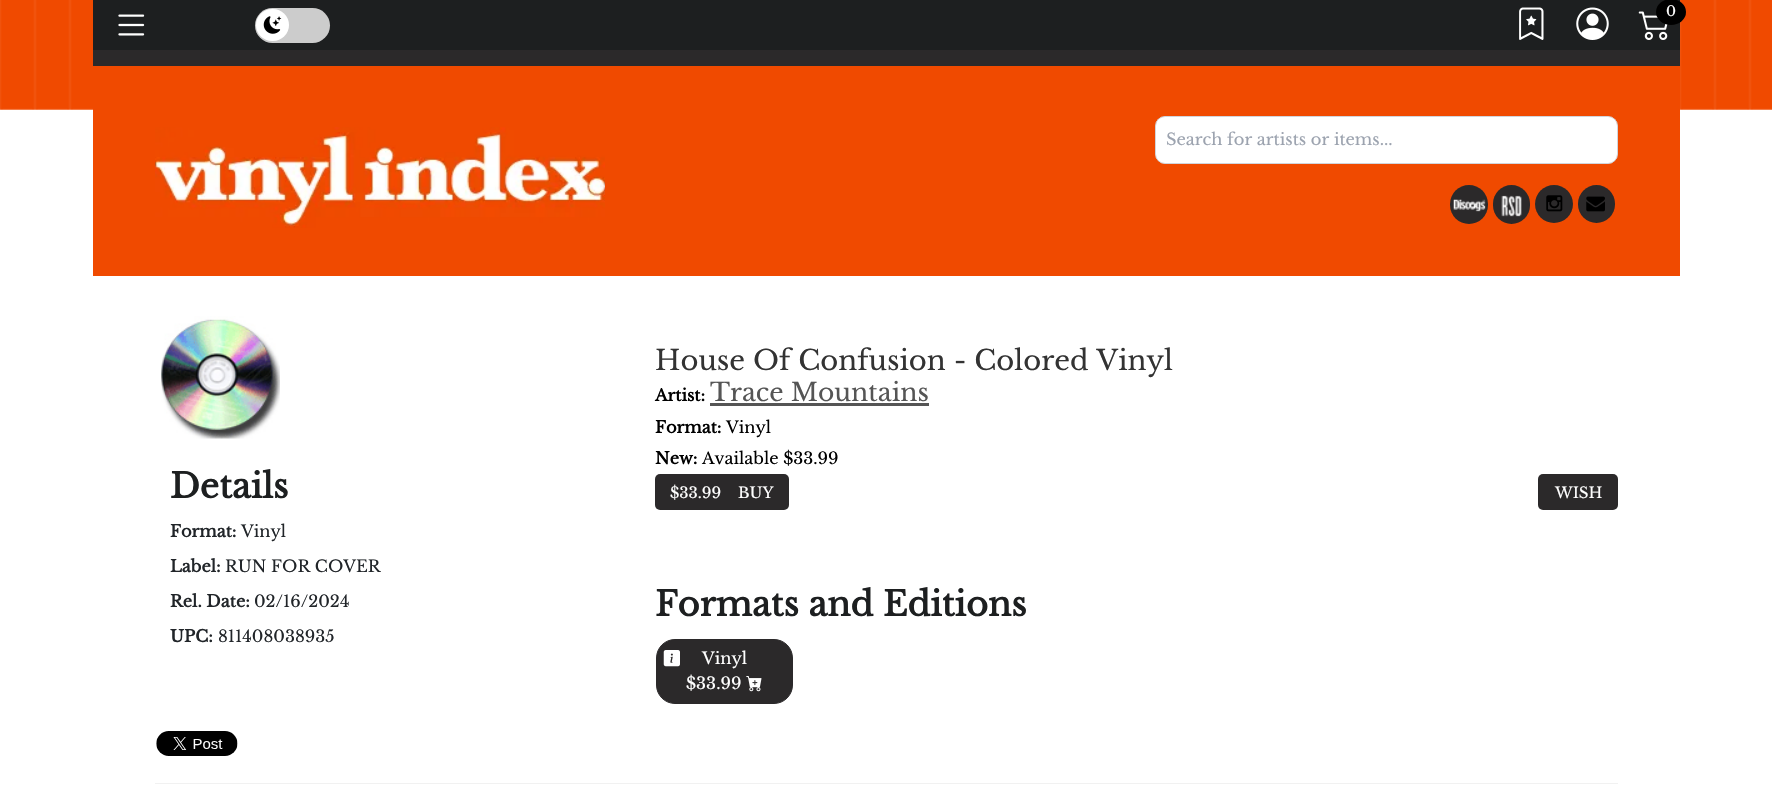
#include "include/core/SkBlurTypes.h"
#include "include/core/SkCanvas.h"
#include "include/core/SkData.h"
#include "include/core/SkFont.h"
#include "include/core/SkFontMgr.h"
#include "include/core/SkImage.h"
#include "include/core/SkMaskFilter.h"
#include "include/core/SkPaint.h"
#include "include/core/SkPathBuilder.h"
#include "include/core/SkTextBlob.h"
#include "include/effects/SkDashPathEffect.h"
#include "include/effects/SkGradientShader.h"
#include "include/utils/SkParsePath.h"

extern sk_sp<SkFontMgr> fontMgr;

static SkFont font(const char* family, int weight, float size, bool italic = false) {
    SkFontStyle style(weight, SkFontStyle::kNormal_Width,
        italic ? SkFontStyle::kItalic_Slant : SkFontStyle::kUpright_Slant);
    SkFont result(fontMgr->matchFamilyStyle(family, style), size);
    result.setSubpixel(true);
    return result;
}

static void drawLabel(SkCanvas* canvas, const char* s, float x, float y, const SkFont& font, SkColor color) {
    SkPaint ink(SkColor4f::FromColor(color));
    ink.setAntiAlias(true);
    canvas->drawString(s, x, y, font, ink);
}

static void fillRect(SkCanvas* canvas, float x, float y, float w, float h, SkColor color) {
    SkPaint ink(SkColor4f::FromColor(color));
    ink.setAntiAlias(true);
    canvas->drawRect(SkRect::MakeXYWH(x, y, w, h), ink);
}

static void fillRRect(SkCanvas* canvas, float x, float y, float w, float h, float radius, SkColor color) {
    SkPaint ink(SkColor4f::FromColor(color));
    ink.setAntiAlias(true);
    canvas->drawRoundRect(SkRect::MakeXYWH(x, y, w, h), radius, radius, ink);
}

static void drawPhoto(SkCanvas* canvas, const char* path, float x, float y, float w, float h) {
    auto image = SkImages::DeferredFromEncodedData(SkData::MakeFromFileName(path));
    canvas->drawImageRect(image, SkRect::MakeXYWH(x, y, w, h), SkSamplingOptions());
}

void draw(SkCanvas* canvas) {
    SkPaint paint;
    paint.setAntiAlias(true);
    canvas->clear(0xFFFFFFFF);
    drawPhoto(canvas, "assets/img1.png", 0, 0, 1772, 110);
    fillRect(canvas, 93, 0, 1587, 50, 0xFF1D1F20);
    drawPhoto(canvas, "assets/img2.png", 118, 14, 27, 22);
    fillRRect(canvas, 255, 8, 75, 35, 17.5f, 0xFFCCCCCC);
    fillRRect(canvas, 256, 9, 33, 32, 16, 0xFFFFFFFF);
    drawPhoto(canvas, "assets/img3.png", 263, 16, 19, 18);
    drawPhoto(canvas, "assets/img4.png", 1519, 7, 25, 33);
    drawPhoto(canvas, "assets/img5.png", 1576, 7, 33, 33);
    drawPhoto(canvas, "assets/img6.png", 1638, 11, 30, 29);
    paint.setColor(0xFF000000);
    canvas->drawOval(SkRect::MakeXYWH(1656, -1, 30, 26), paint);
    SkFont font1 = font("Libre Baskerville", 400, 14);
    drawLabel(canvas, "0", 1666, 16, font1, 0xFFFFFFFF);
    fillRect(canvas, 93, 66, 1587, 210, 0xFFF04A00);
    fillRect(canvas, 93, 50, 1587, 16, 0xFF2B292A);
    drawPhoto(canvas, "assets/img7.png", 155, 127, 450, 101);
    paint.setColor(0xFFFFFFFF);
    canvas->drawRoundRect(SkRect::MakeXYWH(1155.5f, 116.5f, 462, 47), 9.5f, 9.5f, paint);
    paint.setStroke(true);
    paint.setStrokeWidth(1);
    paint.setColor(0xFFD1D5DB);
    canvas->drawRoundRect(SkRect::MakeXYWH(1155.5f, 116.5f, 462, 47), 9.5f, 9.5f, paint);
    SkFont font2 = font("Libre Baskerville", 400, 16.25f);
    drawLabel(canvas, "Search for artists or items...", 1166, 145, font2, 0xFF9CA3AF);
    fillRRect(canvas, 1450, 185, 38, 39, 19, 0xFF2B292A);
    drawPhoto(canvas, "assets/img8.png", 1453, 199, 33, 13);
    fillRRect(canvas, 1493, 185, 37, 39, 18.5f, 0xFF2B292A);
    drawPhoto(canvas, "assets/img9.png", 1501, 195, 21, 22);
    paint.setStroke(false);
    paint.setColor(0xFF2B292A);
    canvas->drawCircle(1554, 204, 19, paint);
    drawPhoto(canvas, "assets/img10.png", 1546, 195, 17, 17);
    fillRRect(canvas, 1578, 185, 37, 38, 18.5f, 0xFF2B292A);
    drawPhoto(canvas, "assets/img11.png", 1586, 196, 19, 16);
    drawPhoto(canvas, "assets/img12.png", 161, 316, 119, 123);
    SkFont font3 = font("Libre Baskerville", 700, 33.75f);
    drawLabel(canvas, "Details", 170, 498, font3, 0xFF1D1F20);
    SkFont font4 = font("Libre Baskerville", 700, 16.25f);
    drawLabel(canvas, "Format:", 170, 537, font4, 0xFF212529);
    drawLabel(canvas, "Vinyl", 241, 537, font2, 0xFF212529);
    drawLabel(canvas, "Label:", 170, 572, font4, 0xFF212529);
    drawLabel(canvas, "RUN FOR COVER", 225, 572, font2, 0xFF212529);
    drawLabel(canvas, "Rel. Date:", 170, 607, font4, 0xFF212529);
    drawLabel(canvas, "02/16/2024", 254, 607, font2, 0xFF212529);
    drawLabel(canvas, "UPC:", 170, 642, font4, 0xFF212529);
    drawLabel(canvas, "811408038935", 218, 642, font2, 0xFF212529);
    drawPhoto(canvas, "assets/img13.png", 156, 731, 82, 25);
    SkFont font5 = font("Libre Baskerville", 400, 27.5f);
    drawLabel(canvas, "House Of Confusion - Colored Vinyl", 655, 370, font5, 0xFF333333);
    drawLabel(canvas, "Artist:", 655, 401, font4, 0xFF000000);
    fillRect(canvas, 710, 403, 219, 3, 0xFF555555);
    SkFont font6 = font("Libre Baskerville", 400, 25);
    drawLabel(canvas, "Trace Mountains", 710, 401, font6, 0xFF555555);
    drawLabel(canvas, "Format:", 655, 433, font4, 0xFF000000);
    drawLabel(canvas, "Vinyl", 726, 433, font2, 0xFF000000);
    drawLabel(canvas, "New:", 655, 464, font4, 0xFF000000);
    drawLabel(canvas, "Available $33.99", 702, 464, font2, 0xFF000000);
    fillRRect(canvas, 655, 474, 134, 36, 5, 0xFF2B292A);
    SkFont font7 = font("Libre Baskerville", 400, 15);
    drawLabel(canvas, "$33.99", 670, 498, font7, 0xFFFFFFFF);
    drawLabel(canvas, "BUY", 738, 498, font7, 0xFFFFFFFF);
    fillRRect(canvas, 1538, 474, 80, 36, 5, 0xFF2B292A);
    drawLabel(canvas, "WISH", 1555, 498, font7, 0xFFFFFFFF);
    drawLabel(canvas, "Formats and Editions", 655, 616, font3, 0xFF1D1F20);
    canvas->drawRoundRect(SkRect::MakeXYWH(656.5f, 639.5f, 136, 64), 18.5f, 18.5f, paint);
    paint.setStroke(true);
    canvas->drawRoundRect(SkRect::MakeXYWH(656.5f, 639.5f, 136, 64), 18.5f, 18.5f, paint);
    drawPhoto(canvas, "assets/img14.png", 663, 650, 17, 17);
    drawLabel(canvas, "Vinyl", 702, 664, font2, 0xFFFFFFFF);
    drawLabel(canvas, "$33.99", 686, 689, font2, 0xFFFFFFFF);
    drawPhoto(canvas, "assets/img15.png", 746, 676, 16, 16);
    fillRect(canvas, 155, 783, 1463, 1, 0xFFF1F1F1);
}
